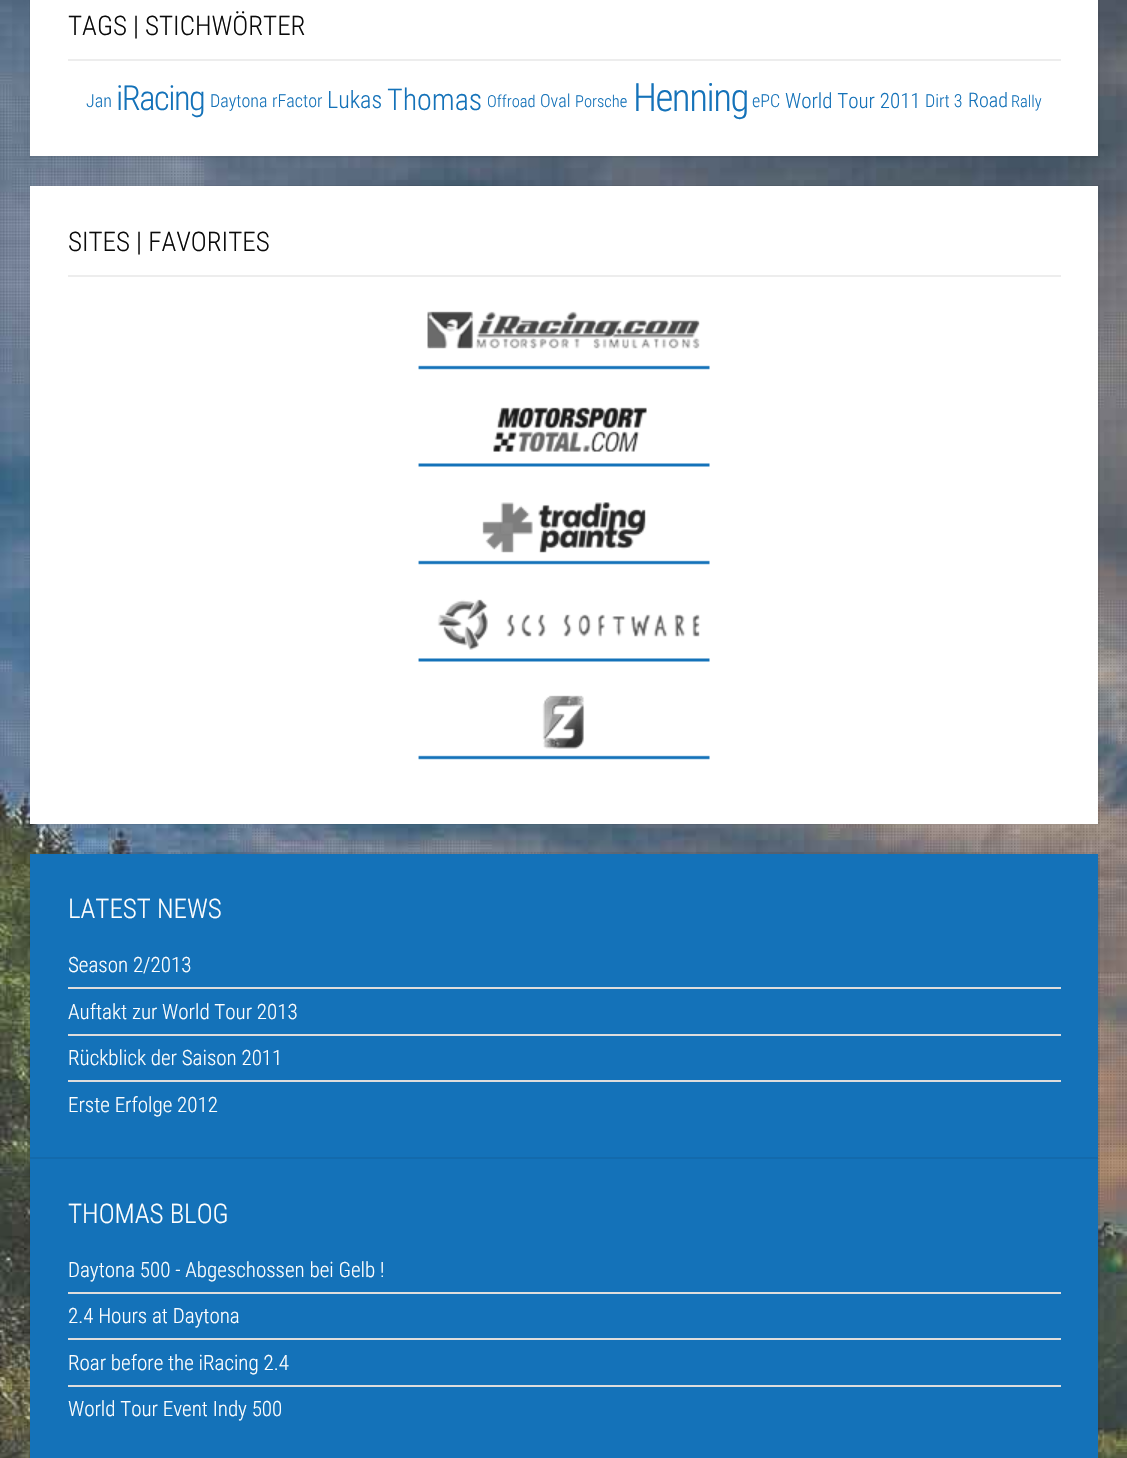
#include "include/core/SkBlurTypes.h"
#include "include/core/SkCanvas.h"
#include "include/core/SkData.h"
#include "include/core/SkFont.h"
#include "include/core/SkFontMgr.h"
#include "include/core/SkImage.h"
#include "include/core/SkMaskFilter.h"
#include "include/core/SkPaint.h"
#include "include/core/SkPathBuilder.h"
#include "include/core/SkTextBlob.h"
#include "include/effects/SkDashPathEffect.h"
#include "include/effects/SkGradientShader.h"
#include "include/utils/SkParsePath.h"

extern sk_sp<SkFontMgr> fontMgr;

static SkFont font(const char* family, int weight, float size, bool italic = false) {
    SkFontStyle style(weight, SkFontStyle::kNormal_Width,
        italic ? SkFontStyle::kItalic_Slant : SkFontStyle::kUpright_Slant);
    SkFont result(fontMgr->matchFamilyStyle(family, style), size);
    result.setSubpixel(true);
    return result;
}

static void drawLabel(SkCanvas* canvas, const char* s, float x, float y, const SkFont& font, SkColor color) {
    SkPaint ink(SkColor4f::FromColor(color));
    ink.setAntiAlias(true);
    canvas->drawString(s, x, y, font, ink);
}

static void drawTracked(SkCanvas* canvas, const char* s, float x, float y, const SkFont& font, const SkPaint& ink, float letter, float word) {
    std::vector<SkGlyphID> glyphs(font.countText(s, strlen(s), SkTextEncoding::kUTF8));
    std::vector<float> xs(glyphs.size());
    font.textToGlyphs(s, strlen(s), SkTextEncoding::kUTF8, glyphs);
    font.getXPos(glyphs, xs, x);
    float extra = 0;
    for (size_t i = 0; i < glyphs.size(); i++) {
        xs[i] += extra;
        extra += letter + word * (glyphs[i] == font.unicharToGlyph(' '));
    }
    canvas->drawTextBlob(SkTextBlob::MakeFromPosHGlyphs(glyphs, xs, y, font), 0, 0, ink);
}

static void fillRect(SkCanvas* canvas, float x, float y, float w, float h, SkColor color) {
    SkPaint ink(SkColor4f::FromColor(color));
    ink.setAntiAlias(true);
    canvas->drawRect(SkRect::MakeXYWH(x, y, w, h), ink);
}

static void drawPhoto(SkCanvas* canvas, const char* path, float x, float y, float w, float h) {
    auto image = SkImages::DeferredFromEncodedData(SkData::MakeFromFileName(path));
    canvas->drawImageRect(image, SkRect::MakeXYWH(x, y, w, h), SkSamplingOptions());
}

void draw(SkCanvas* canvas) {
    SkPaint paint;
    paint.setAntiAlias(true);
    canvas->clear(0xFFFFFFFF);
    drawPhoto(canvas, "assets/img1.png", 0, 0, 1127, 1458);
    paint.setStroke(true);
    paint.setStrokeWidth(2);
    paint.setColor(0x0F000000);
    canvas->drawRect(SkRect::MakeXYWH(30, -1, 1069, 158), paint);
    fillRect(canvas, 30, 0, 1068, 156, 0xFFFFFFFF);
    fillRect(canvas, 68, 59, 993, 2, 0xFFEDEDED);
    SkFont font1 = font("Roboto Condensed", 300, 27);
    drawLabel(canvas, "TAGS | STICHWÖRTER", 68, 35, font1, 0xFF0B0B0B);
    SkFont font2 = font("Roboto Condensed", 300, 18);
    drawLabel(canvas, "Jan", 86, 107, font2, 0xFF1472B9);
    SkFont font3 = font("Roboto Condensed", 300, 34.5f);
    paint.setStroke(false);
    paint.setColor(0xFF1472B9);
    drawTracked(canvas, "iRacing", 116, 110, font3, paint, -1.5f, 0);
    drawLabel(canvas, "Daytona", 210, 107, font2, 0xFF1472B9);
    drawLabel(canvas, "rFactor", 272, 107, font2, 0xFF1472B9);
    SkFont font4 = font("Roboto Condensed", 300, 24);
    drawLabel(canvas, "Lukas", 327, 108, font4, 0xFF1472B9);
    SkFont font5 = font("Roboto Condensed", 300, 30);
    drawLabel(canvas, "Thomas", 387, 110, font5, 0xFF1472B9);
    SkFont font6 = font("Roboto Condensed", 300, 16.5f);
    drawLabel(canvas, "Offroad", 487, 107, font6, 0xFF1472B9);
    drawLabel(canvas, "Oval", 540, 107, font2, 0xFF1472B9);
    drawLabel(canvas, "Porsche", 575, 107, font6, 0xFF1472B9);
    SkFont font7 = font("Roboto Condensed", 300, 39);
    drawTracked(canvas, "Henning", 633, 111, font7, paint, -1.5f, 0);
    drawLabel(canvas, "ePC", 752, 107, font2, 0xFF1472B9);
    SkFont font8 = font("Roboto Condensed", 300, 21);
    drawLabel(canvas, "World Tour 2011", 785, 108, font8, 0xFF1472B9);
    drawLabel(canvas, "Dirt 3", 925, 107, font2, 0xFF1472B9);
    SkFont font9 = font("Roboto Condensed", 300, 20);
    drawLabel(canvas, "Road", 968, 107, font9, 0xFF1472B9);
    drawLabel(canvas, "Rally", 1011, 107, font6, 0xFF1472B9);
    paint.setStroke(true);
    paint.setColor(0x0F000000);
    canvas->drawRect(SkRect::MakeXYWH(30, 186, 1069, 638), paint);
    fillRect(canvas, 30, 186, 1068, 638, 0xFFFFFFFF);
    fillRect(canvas, 68, 275, 993, 2, 0xFFEDEDED);
    drawLabel(canvas, "SITES | FAVORITES", 68, 251, font1, 0xFF0B0B0B);
    drawPhoto(canvas, "assets/img2.png", 418, 311, 292, 59);
    drawPhoto(canvas, "assets/img3.png", 418, 407, 292, 60);
    drawPhoto(canvas, "assets/img4.png", 418, 502, 292, 63);
    drawPhoto(canvas, "assets/img5.png", 418, 599, 292, 63);
    drawPhoto(canvas, "assets/img6.png", 418, 695, 292, 65);
    canvas->drawRect(SkRect::MakeXYWH(30, 853, 1069, 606), paint);
    fillRect(canvas, 30, 854, 1068, 303, 0xFF1472B9);
    drawLabel(canvas, "LATEST NEWS", 68, 918, font1, 0xFFFFFFFF);
    drawLabel(canvas, "Season 2/2013", 68, 972, font8, 0xFFFFFFFF);
    fillRect(canvas, 68, 987, 993, 2, 0xFFDDDDDD);
    drawLabel(canvas, "Auftakt zur World Tour 2013", 68, 1019, font8, 0xFFFFFFFF);
    fillRect(canvas, 68, 1034, 993, 2, 0xFFDDDDDD);
    drawLabel(canvas, "Rückblick der Saison 2011", 68, 1065, font8, 0xFFFFFFFF);
    fillRect(canvas, 68, 1080, 993, 2, 0xFFDDDDDD);
    drawLabel(canvas, "Erste Erfolge 2012", 68, 1112, font8, 0xFFFFFFFF);
    fillRect(canvas, 30, 1159, 1068, 299, 0xFF1472B9);
    fillRect(canvas, 30, 1157, 1068, 2, 0xFF136AAC);
    drawLabel(canvas, "THOMAS BLOG", 68, 1223, font1, 0xFFFFFFFF);
    drawLabel(canvas, "Daytona 500 - Abgeschossen bei Gelb !", 68, 1277, font8, 0xFFFFFFFF);
    fillRect(canvas, 68, 1292, 993, 2, 0xFFDDDDDD);
    drawLabel(canvas, "2.4 Hours at Daytona", 68, 1323, font8, 0xFFFFFFFF);
    fillRect(canvas, 68, 1338, 993, 2, 0xFFDDDDDD);
    drawLabel(canvas, "Roar before the iRacing 2.4", 68, 1370, font8, 0xFFFFFFFF);
    fillRect(canvas, 68, 1385, 993, 2, 0xFFDDDDDD);
    drawLabel(canvas, "World Tour Event Indy 500", 68, 1416, font8, 0xFFFFFFFF);
}
